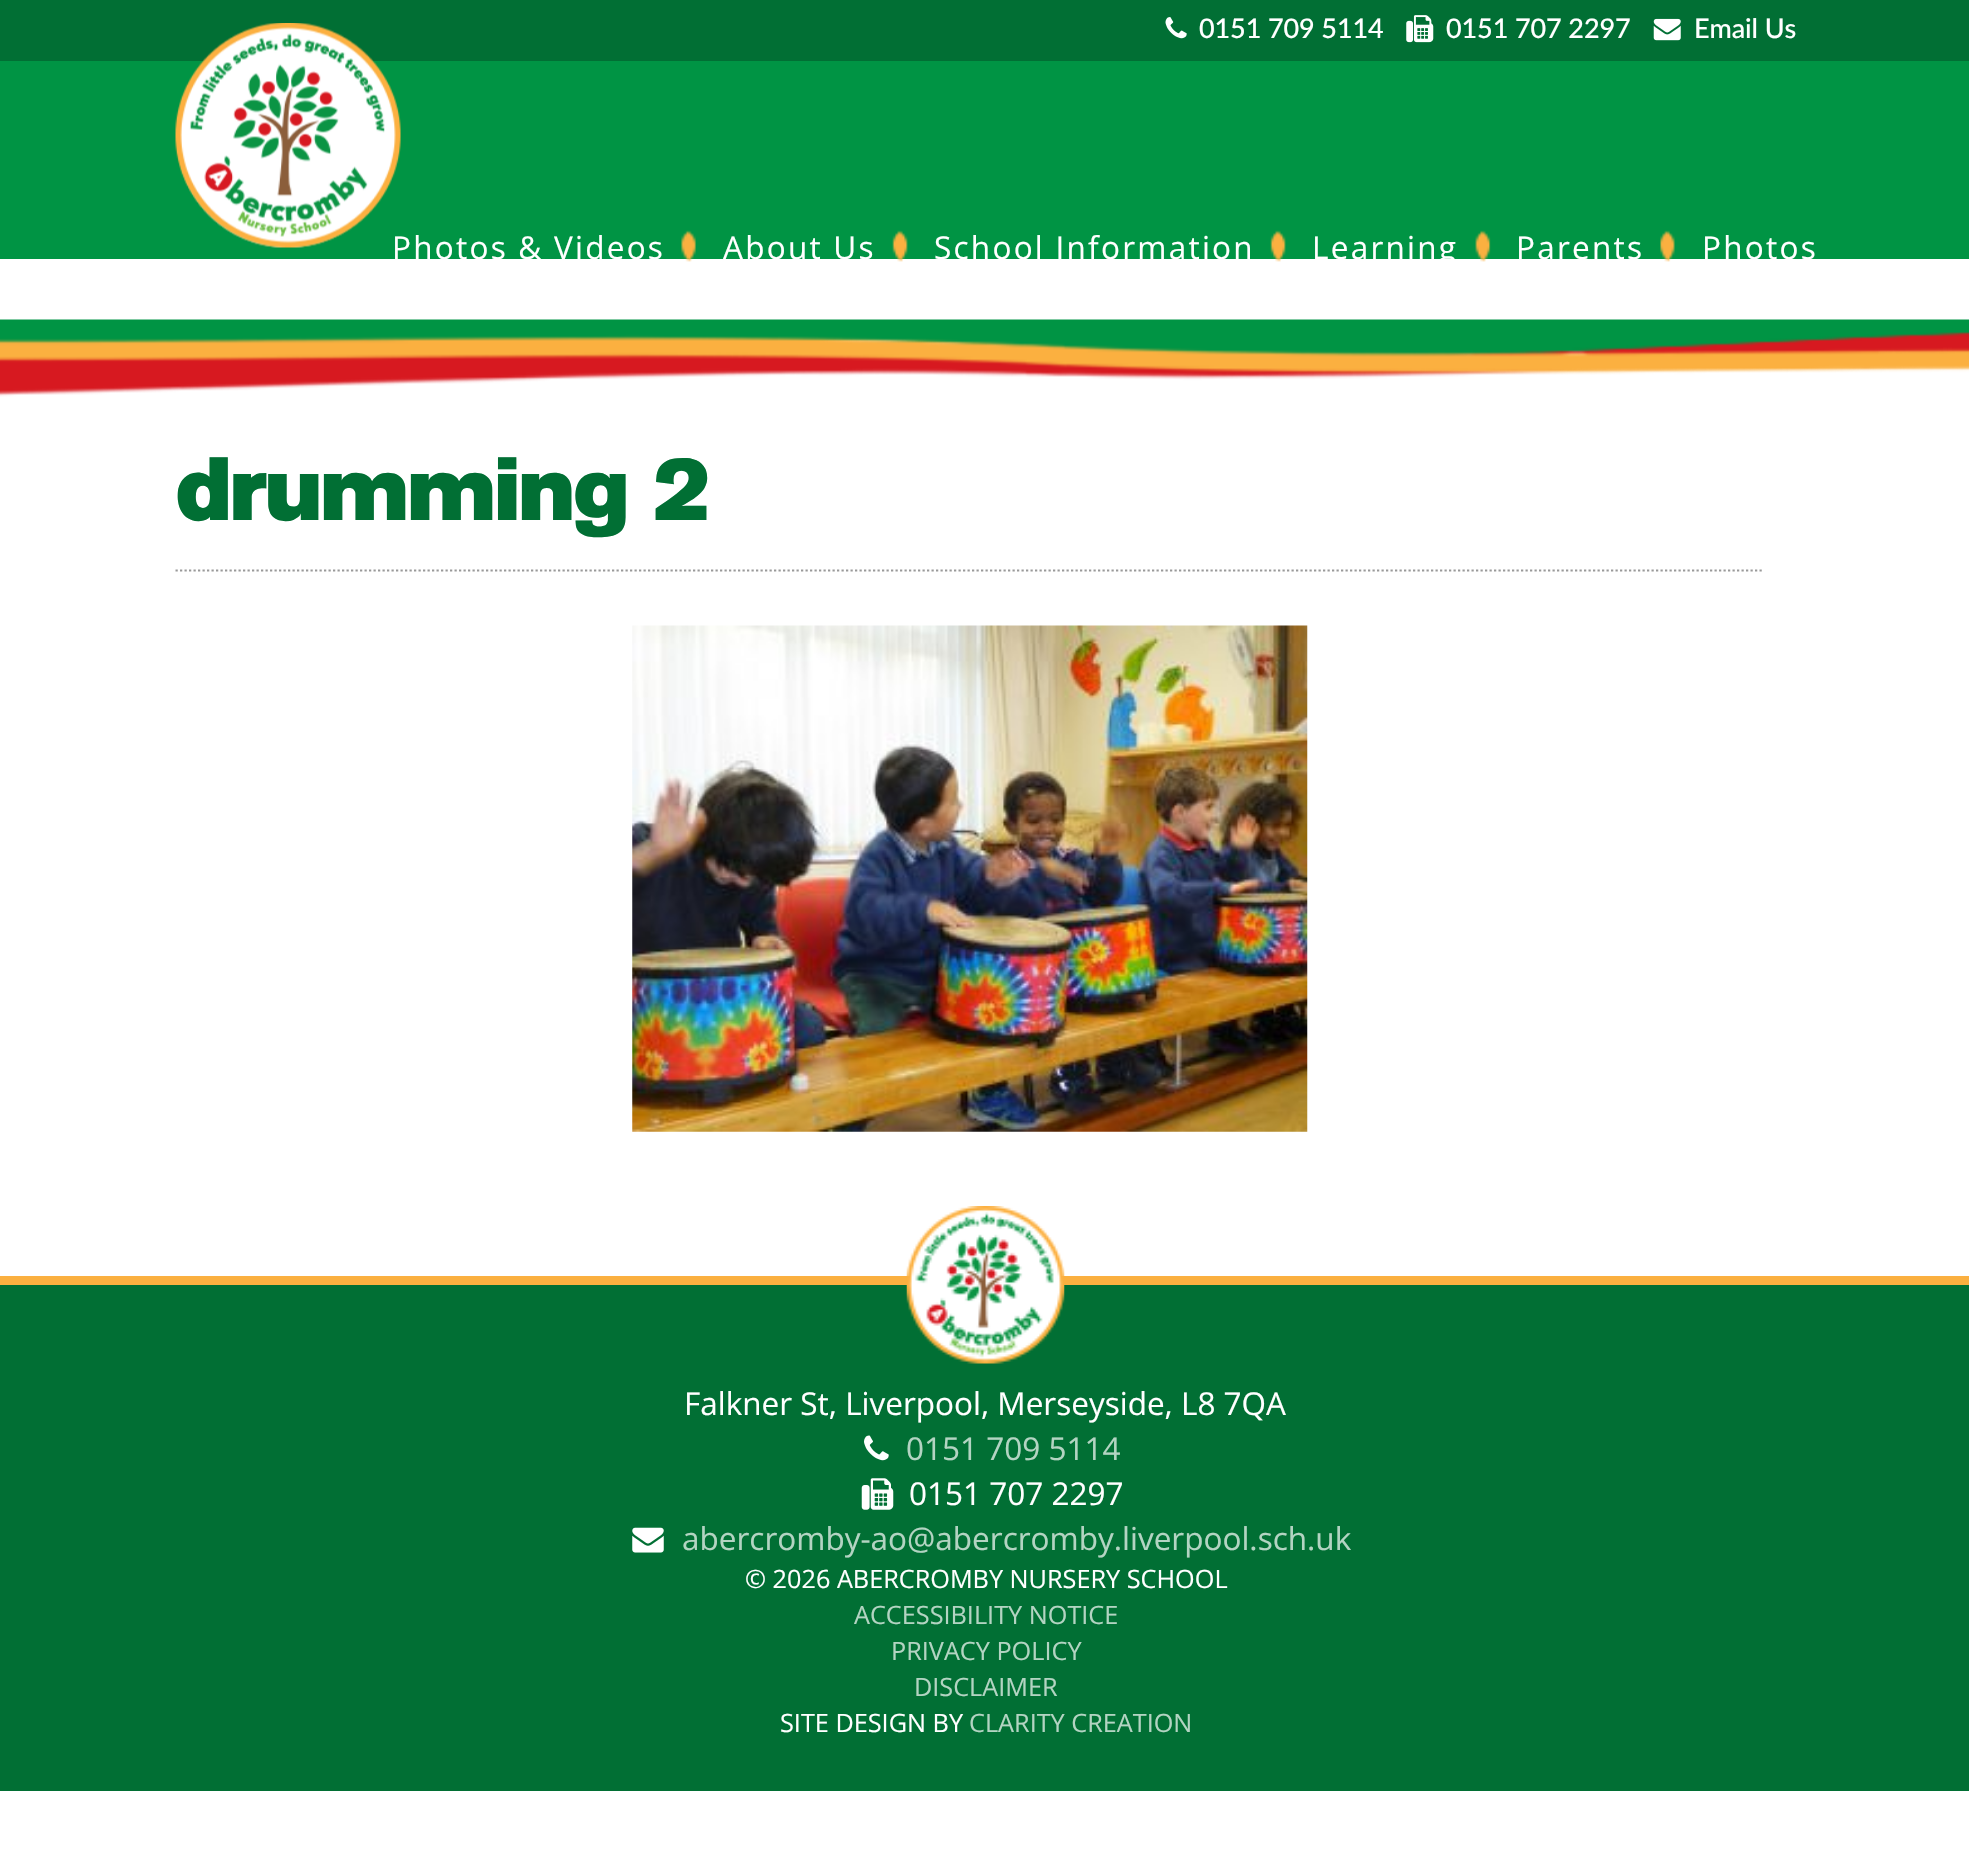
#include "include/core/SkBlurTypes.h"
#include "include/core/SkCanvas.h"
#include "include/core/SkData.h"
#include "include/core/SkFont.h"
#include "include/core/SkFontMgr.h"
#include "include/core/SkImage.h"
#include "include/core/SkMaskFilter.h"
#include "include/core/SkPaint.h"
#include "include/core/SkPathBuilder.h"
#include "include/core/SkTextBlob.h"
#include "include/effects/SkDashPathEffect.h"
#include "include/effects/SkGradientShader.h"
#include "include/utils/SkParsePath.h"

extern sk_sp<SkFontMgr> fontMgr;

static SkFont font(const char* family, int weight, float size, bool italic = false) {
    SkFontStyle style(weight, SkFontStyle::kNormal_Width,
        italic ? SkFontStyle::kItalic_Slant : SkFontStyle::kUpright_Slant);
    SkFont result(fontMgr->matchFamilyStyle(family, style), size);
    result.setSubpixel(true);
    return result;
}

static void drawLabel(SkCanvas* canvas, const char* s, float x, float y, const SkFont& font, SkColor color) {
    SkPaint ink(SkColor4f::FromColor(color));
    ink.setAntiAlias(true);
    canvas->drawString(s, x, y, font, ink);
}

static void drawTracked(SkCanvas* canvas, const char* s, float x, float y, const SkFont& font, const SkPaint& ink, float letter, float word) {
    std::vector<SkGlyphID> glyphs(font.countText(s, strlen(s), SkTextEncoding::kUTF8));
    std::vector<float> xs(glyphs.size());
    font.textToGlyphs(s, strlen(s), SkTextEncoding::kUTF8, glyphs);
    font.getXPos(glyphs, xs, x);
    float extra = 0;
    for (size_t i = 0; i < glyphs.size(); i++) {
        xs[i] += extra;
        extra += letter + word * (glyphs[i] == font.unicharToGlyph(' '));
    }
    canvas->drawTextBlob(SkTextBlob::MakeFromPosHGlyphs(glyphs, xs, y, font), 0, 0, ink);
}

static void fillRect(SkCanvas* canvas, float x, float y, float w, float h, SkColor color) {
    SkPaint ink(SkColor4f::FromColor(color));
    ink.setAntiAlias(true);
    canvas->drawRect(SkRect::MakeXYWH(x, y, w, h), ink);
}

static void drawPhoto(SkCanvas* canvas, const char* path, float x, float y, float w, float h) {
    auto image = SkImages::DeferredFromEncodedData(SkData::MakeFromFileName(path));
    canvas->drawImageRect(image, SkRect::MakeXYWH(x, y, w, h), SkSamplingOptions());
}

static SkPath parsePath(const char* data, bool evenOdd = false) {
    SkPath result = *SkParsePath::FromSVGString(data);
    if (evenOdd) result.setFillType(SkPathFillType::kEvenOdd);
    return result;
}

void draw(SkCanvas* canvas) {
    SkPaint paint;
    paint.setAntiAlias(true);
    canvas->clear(0xFFFFFFFF);
    fillRect(canvas, 0, 61, 1969, 198, 0xFF009444);
    fillRect(canvas, 0, 0, 1969, 61, 0xFF016F34);
    drawPhoto(canvas, "assets/img1.png", 1165, 17, 22, 22);
    SkFont font1 = font("Lato", 500, 27);
    paint.setColor(0xFFFFFFFF);
    drawTracked(canvas, "0151 709 5114", 1199, 38, font1, paint, -0.1f, 0);
    drawPhoto(canvas, "assets/img2.png", 1406, 15, 28, 28);
    drawTracked(canvas, "0151 707 2297", 1446, 38, font1, paint, -0.1f, 0);
    drawPhoto(canvas, "assets/img3.png", 1653, 18, 28, 23);
    drawTracked(canvas, "Email Us", 1694, 38, font1, paint, -0.1f, 0);
    drawPhoto(canvas, "assets/img4.png", 175, 23, 226, 225);
    SkFont font2 = font("Open Sans", 400, 31.5f);
    drawTracked(canvas, "Photos & Videos", 392, 259, font2, paint, 2.25f, 0);
    drawPhoto(canvas, "assets/img5.png", 681, 230, 15, 32);
    drawTracked(canvas, "About Us", 723, 259, font2, paint, 2.25f, 0);
    drawPhoto(canvas, "assets/img6.png", 892, 230, 16, 32);
    drawTracked(canvas, "School Information", 934, 259, font2, paint, 2.25f, 0);
    drawPhoto(canvas, "assets/img6.png", 1270, 230, 16, 32);
    drawTracked(canvas, "Learning", 1312, 259, font2, paint, 2.25f, 0);
    drawPhoto(canvas, "assets/img7.png", 1475, 230, 16, 32);
    drawTracked(canvas, "Parents", 1516, 259, font2, paint, 2.25f, 0);
    drawPhoto(canvas, "assets/img8.png", 1660, 230, 15, 32);
    drawTracked(canvas, "Photos", 1702, 259, font2, paint, 2.25f, 0);
    drawPhoto(canvas, "assets/img9.png", 0, 319, 1969, 78);
    paint.setStroke(true);
    paint.setStrokeWidth(2.2f);
    paint.setColor(0xFF999999);
    paint.setPathEffect(SkDashPathEffect::Make({{2.25f, 2.25f}}, 0));
    canvas->drawPath(parsePath("M175.5 570.5H1762"), paint);
    paint.setPathEffect(nullptr);
    SkFont font3 = font("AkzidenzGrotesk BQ", 500, 89);
    paint.setStroke(false);
    paint.setColor(0xFF016F34);
    drawTracked(canvas, "drumming 2", 176, 520, font3, paint, -2, 0);
    drawPhoto(canvas, "assets/img10.png", 632, 625, 676, 507);
    fillRect(canvas, 0, 1285, 1969, 506, 0xFF016F34);
    fillRect(canvas, 0, 1276, 1969, 9, 0xFFFBB040);
    drawPhoto(canvas, "assets/img11.png", 906, 1206, 159, 158);
    drawLabel(canvas, "Falkner St, Liverpool, Merseyside, L8 7QA", 684, 1415, font2, 0xFFFFFFFF);
    drawPhoto(canvas, "assets/img12.png", 864, 1435, 25, 26);
    drawLabel(canvas, "0151 709 5114", 906, 1460, font2, 0xFFB3D4C2);
    drawPhoto(canvas, "assets/img13.png", 861, 1478, 33, 32);
    drawLabel(canvas, "0151 707 2297", 909, 1505, font2, 0xFFFFFFFF);
    drawPhoto(canvas, "assets/img14.png", 632, 1527, 32, 26);
    drawLabel(canvas, "abercromby-ao@abercromby.liverpool.sch.uk", 682, 1550, font2, 0xFFB3D4C2);
    SkFont font4 = font("Open Sans", 400, 25.25f);
    drawLabel(canvas, "© 2026 ABERCROMBY NURSERY SCHOOL", 745, 1588, font4, 0xFFFFFFFF);
    drawLabel(canvas, "ACCESSIBILITY NOTICE", 854, 1624, font4, 0xFFB3D4C2);
    drawLabel(canvas, "PRIVACY POLICY", 891, 1660, font4, 0xFFB3D4C2);
    drawLabel(canvas, "DISCLAIMER", 914, 1696, font4, 0xFFB3D4C2);
    drawLabel(canvas, "SITE DESIGN BY", 780, 1732, font4, 0xFFFFFFFF);
    drawLabel(canvas, "CLARITY CREATION", 969, 1732, font4, 0xFFB3D4C2);
}
